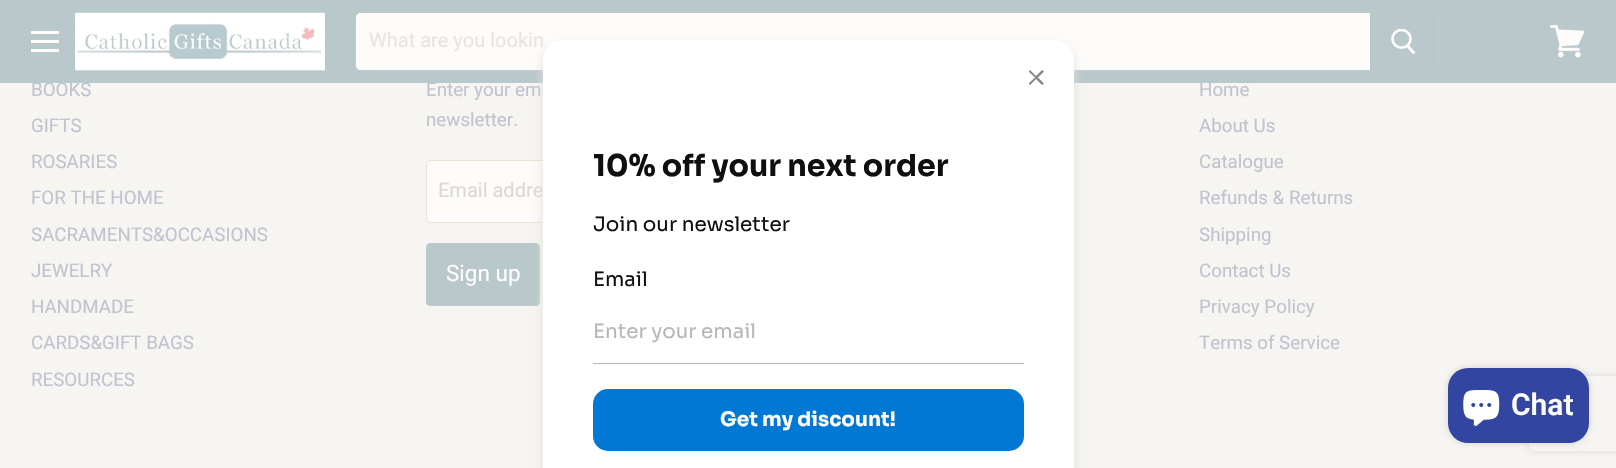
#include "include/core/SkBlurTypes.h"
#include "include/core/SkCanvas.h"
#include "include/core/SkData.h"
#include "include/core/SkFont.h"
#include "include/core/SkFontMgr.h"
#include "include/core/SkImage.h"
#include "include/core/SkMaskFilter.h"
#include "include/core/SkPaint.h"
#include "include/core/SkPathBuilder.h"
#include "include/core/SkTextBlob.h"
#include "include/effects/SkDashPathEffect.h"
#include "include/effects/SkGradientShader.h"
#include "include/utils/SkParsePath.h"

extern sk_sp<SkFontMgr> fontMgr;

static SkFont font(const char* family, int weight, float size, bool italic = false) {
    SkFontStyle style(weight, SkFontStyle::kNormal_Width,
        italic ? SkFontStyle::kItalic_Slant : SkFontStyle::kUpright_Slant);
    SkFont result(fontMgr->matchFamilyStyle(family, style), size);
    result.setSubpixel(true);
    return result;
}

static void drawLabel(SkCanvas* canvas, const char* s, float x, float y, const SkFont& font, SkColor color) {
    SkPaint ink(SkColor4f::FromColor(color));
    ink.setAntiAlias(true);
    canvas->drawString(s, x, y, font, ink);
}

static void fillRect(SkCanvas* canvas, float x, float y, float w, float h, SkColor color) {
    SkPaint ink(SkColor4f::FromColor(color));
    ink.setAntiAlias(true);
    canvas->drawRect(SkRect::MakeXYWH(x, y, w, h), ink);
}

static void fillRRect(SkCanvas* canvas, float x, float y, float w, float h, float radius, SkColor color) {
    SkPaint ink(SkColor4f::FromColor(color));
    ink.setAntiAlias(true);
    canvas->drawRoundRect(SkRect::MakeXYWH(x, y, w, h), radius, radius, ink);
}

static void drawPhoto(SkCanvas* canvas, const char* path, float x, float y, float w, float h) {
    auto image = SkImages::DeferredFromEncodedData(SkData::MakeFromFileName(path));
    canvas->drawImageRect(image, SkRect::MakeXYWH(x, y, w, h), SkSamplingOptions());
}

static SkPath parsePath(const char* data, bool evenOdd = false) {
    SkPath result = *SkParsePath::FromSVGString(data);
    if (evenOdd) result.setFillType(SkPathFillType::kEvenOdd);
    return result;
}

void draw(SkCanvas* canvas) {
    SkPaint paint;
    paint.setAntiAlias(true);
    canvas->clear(0xFFF7F5F1);
    SkFont font1 = font("Roboto", 400, 18.75f);
    drawLabel(canvas, "BOOKS", 31, 96, font1, 0xFFBFC4CF);
    drawLabel(canvas, "Enter your em", 426, 96, font1, 0xFFBFC4CF);
    drawLabel(canvas, "Home", 1199, 96, font1, 0xFFBFC4CF);
    fillRect(canvas, 0, 0, 1616, 83, 0xFFB9C8CA);
    fillRect(canvas, 31, 31, 28, 3, 0xFFFEFCFA);
    fillRect(canvas, 31, 40, 28, 3, 0xFFFEFCFA);
    fillRect(canvas, 31, 49, 28, 3, 0xFFFEFCFA);
    drawPhoto(canvas, "assets/img1.png", 75, 12, 250, 59);
    paint.setStroke(true);
    paint.setStrokeWidth(1);
    paint.setColor(0x33D8D7D7);
    canvas->drawRoundRect(SkRect::MakeXYWH(355.5f, 11.5f, 1083, 59), 4.5f, 4.5f, paint);
    paint.setStroke(false);
    paint.setColor(0xFFFEFCFA);
    canvas->drawPath(parsePath("M360 13H1370V70H360C358 70 356 68 356 66V17C356 15 358 13 360 13Z"), paint);
    SkFont font2 = font("Roboto", 400, 20);
    drawLabel(canvas, "What are you lookin", 369, 47, font2, 0xFFE6E5E4);
    drawPhoto(canvas, "assets/img2.png", 1391, 29, 25, 26);
    drawPhoto(canvas, "assets/img3.png", 1550, 25, 35, 33);
    drawLabel(canvas, "GIFTS", 31, 132, font1, 0xFFBFC4CF);
    drawLabel(canvas, "ROSARIES", 31, 168, font1, 0xFFBFC4CF);
    drawLabel(canvas, "FOR THE HOME", 31, 204, font1, 0xFFBFC4CF);
    drawLabel(canvas, "SACRAMENTS&OCCASIONS", 31, 241, font1, 0xFFBFC4CF);
    drawLabel(canvas, "JEWELRY", 31, 277, font1, 0xFFBFC4CF);
    drawLabel(canvas, "HANDMADE", 31, 313, font1, 0xFFBFC4CF);
    drawLabel(canvas, "CARDS&GIFT BAGS", 31, 349, font1, 0xFFBFC4CF);
    drawLabel(canvas, "RESOURCES", 31, 386, font1, 0xFFBFC4CF);
    drawLabel(canvas, "newsletter.", 426, 126, font1, 0xFFBFC4CF);
    canvas->drawRoundRect(SkRect::MakeXYWH(426.5f, 160.5f, 306, 62), 3.5f, 3.5f, paint);
    paint.setStroke(true);
    paint.setColor(0xFFEDE1D3);
    canvas->drawRoundRect(SkRect::MakeXYWH(426.5f, 160.5f, 306, 62), 3.5f, 3.5f, paint);
    drawLabel(canvas, "Email addre", 438, 197, font2, 0xFFDAD9D8);
    paint.setStroke(false);
    paint.setColor(0xFFB9C8CA);
    canvas->drawRoundRect(SkRect::MakeXYWH(426.5f, 243.5f, 113, 62), 3.5f, 3.5f, paint);
    paint.setStroke(true);
    canvas->drawRoundRect(SkRect::MakeXYWH(426.5f, 243.5f, 113, 62), 3.5f, 3.5f, paint);
    SkFont font3 = font("Roboto", 400, 22.5f);
    drawLabel(canvas, "Sign up", 446, 281, font3, 0xFFFEFCFA);
    drawLabel(canvas, "About Us", 1199, 132, font1, 0xFFBFC4CF);
    drawLabel(canvas, "Catalogue", 1199, 168, font1, 0xFFBFC4CF);
    drawLabel(canvas, "Refunds & Returns", 1199, 204, font1, 0xFFBFC4CF);
    drawLabel(canvas, "Shipping", 1199, 241, font1, 0xFFBFC4CF);
    drawLabel(canvas, "Contact Us", 1199, 277, font1, 0xFFBFC4CF);
    drawLabel(canvas, "Privacy Policy", 1199, 313, font1, 0xFFBFC4CF);
    drawLabel(canvas, "Terms of Service", 1199, 349, font1, 0xFFBFC4CF);
    paint.setStroke(false);
    paint.setColor(0xFFE0E0E0);
    paint.setMaskFilter(SkMaskFilter::MakeBlur(kNormal_SkBlurStyle, 6));
    canvas->drawRoundRect(SkRect::MakeXYWH(543, 46, 531, 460), 20, 20, paint);
    paint.setMaskFilter(nullptr);
    paint.setColor(0xFFFFFFFF);
    canvas->drawPath(parsePath("M563 40H1054C1065 40 1074 49 1074 60V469H543V60C543 49 552 40 563 40Z"), paint);
    paint.setColor(0xFF878787);
    canvas->drawPath(parsePath("M1030 70L1036 76L1042 70L1044 71.5L1038 77.5L1044 83.5L1042 85L1036 79L1030 85L1029 84V83L1035 77.5L1029 72V71Z"), paint);
    SkFont font4 = font("Sora", 700, 30);
    drawLabel(canvas, "10% off your next order", 593, 176, font4, 0xFF0F0F0F);
    SkFont font5 = font("Sora", 400, 20);
    drawLabel(canvas, "Join our newsletter", 593, 231, font5, 0xFF0F0F0F);
    drawLabel(canvas, "Email", 593, 286, font5, 0xFF0F0F0F);
    fillRect(canvas, 593, 363, 431, 1, 0xFFB7B7B7);
    drawLabel(canvas, "Enter your email", 593, 338, font5, 0xFFB7B7B7);
    fillRRect(canvas, 593, 389, 431, 62, 15, 0xFF0178D4);
    SkFont font6 = font("Sora", 700, 20);
    drawLabel(canvas, "Get my discount!", 720, 426, font6, 0xFFFEFCFA);
    canvas->save();
    canvas->clipPath(parsePath("M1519 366H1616V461H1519ZM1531.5 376H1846.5C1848 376 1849 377 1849 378.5V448.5C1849 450 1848 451 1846.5 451H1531.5C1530 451 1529 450 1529 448.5V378.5C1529 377 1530 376 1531.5 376Z", true), true);
    paint.setColor(0xFFD9D9D9);
    paint.setMaskFilter(SkMaskFilter::MakeBlur(kNormal_SkBlurStyle, 3));
    canvas->drawRoundRect(SkRect::MakeXYWH(1529, 376, 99, 75), 2.5f, 2.5f, paint);
    paint.setMaskFilter(nullptr);
    canvas->restore();
    paint.setColor(0x26000000);
    paint.setMaskFilter(SkMaskFilter::MakeBlur(kNormal_SkBlurStyle, 3));
    canvas->drawRoundRect(SkRect::MakeXYWH(1448, 368, 141, 75), 20, 20, paint);
    paint.setMaskFilter(nullptr);
    fillRRect(canvas, 1448, 368, 141, 75, 20, 0xFF3145A1);
    drawPhoto(canvas, "assets/img4.png", 1463, 390, 37, 36);
    SkFont font7 = font("Roboto", 600, 30);
    drawLabel(canvas, "Chat", 1511, 415, font7, 0xFFFEFCFA);
}
